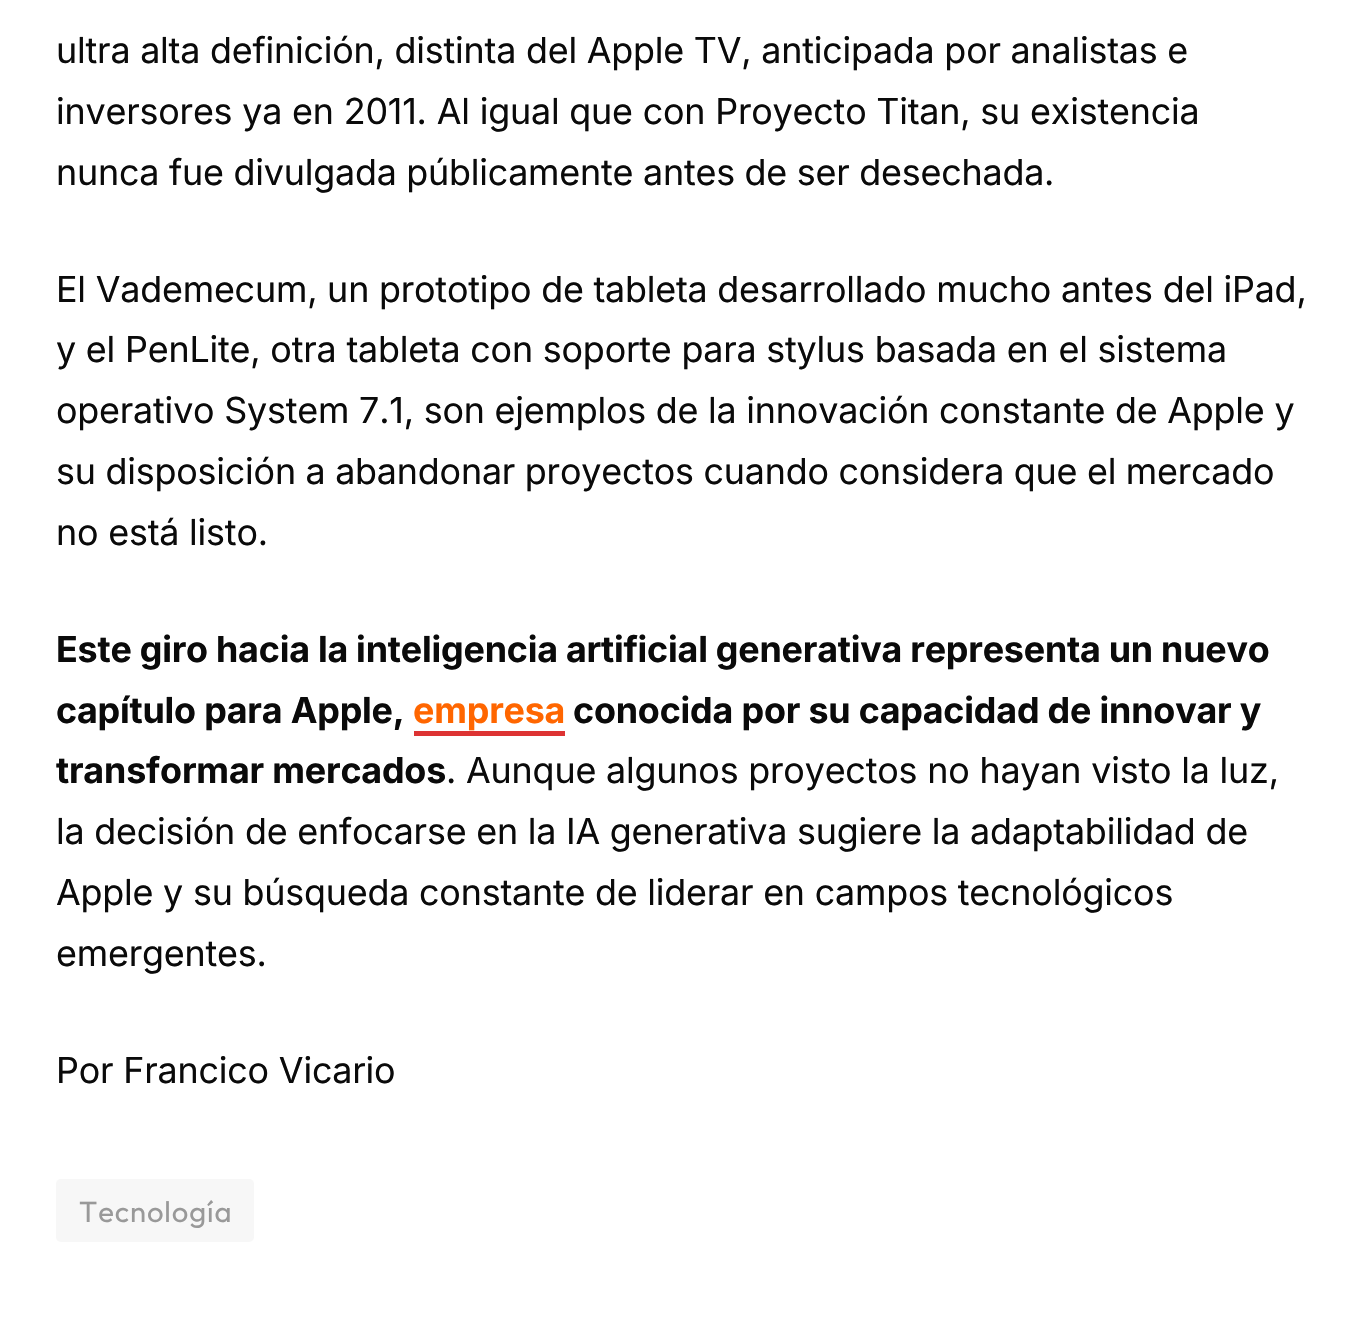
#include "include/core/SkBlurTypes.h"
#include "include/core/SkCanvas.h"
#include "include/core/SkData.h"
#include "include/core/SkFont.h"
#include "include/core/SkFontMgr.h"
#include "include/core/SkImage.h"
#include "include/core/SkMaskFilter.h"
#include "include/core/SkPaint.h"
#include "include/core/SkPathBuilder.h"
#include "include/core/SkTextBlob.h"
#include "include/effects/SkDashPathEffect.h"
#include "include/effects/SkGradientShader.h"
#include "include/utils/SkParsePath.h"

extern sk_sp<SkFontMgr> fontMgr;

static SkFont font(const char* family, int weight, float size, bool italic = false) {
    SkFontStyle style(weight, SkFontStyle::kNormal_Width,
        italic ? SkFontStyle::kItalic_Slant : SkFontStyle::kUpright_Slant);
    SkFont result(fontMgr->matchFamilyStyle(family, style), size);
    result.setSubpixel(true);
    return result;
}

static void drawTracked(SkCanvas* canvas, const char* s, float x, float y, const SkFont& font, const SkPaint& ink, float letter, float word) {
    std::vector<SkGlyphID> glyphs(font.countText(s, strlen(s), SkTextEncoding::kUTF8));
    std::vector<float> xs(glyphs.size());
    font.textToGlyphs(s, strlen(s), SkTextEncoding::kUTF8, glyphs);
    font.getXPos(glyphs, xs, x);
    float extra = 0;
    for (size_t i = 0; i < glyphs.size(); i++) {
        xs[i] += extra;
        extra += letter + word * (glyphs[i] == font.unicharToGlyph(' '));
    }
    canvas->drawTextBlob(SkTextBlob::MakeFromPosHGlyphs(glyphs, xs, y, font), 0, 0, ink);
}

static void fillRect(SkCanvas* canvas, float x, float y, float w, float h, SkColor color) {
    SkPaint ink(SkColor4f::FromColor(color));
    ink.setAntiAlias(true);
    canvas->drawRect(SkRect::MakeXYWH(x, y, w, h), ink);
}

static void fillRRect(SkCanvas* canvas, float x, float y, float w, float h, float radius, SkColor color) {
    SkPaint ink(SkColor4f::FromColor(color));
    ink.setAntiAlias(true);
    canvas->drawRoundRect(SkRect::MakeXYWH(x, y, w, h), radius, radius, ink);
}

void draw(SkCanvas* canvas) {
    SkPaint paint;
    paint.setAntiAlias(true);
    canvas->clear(0xFFFFFFFF);
    SkFont font1 = font("Inter", 400, 35.85f);
    paint.setColor(0xFF0A0A0A);
    drawTracked(canvas, "ultra alta definición, distinta del Apple TV, anticipada por analistas e", 56, 63, font1, paint, -0.18f, -0.1f);
    drawTracked(canvas, "inversores ya en 2011. Al igual que con Proyecto Titan, su existencia", 56, 124, font1, paint, -0.18f, 0);
    drawTracked(canvas, "nunca fue divulgada públicamente antes de ser desechada.", 56, 185, font1, paint, -0.18f, -0.25f);
    drawTracked(canvas, "El Vademecum, un prototipo de tableta desarrollado mucho antes del iPad,", 56, 302, font1, paint, -0.18f, -0.1f);
    drawTracked(canvas, "y el PenLite, otra tableta con soporte para stylus basada en el sistema", 56, 362, font1, paint, -0.18f, 0);
    drawTracked(canvas, "operativo System 7.1, son ejemplos de la innovación constante de Apple y", 56, 423, font1, paint, -0.18f, -0.1f);
    drawTracked(canvas, "su disposición a abandonar proyectos cuando considera que el mercado", 56, 484, font1, paint, -0.18f, -0.25f);
    drawTracked(canvas, "no está listo.", 56, 545, font1, paint, -0.18f, 0);
    SkFont font2 = font("Inter", 700, 35.85f);
    drawTracked(canvas, "Este giro hacia la inteligencia artificial generativa representa un nuevo", 56, 662, font2, paint, -0.18f, -0.25f);
    drawTracked(canvas, "capítulo para Apple,", 56, 723, font2, paint, -0.18f, 0);
    paint.setColor(0xFFFF6600);
    drawTracked(canvas, "empresa", 413, 723, font2, paint, -0.18f, 0);
    fillRect(canvas, 414, 731, 151, 5, 0xFFDD3333);
    paint.setColor(0xFF0A0A0A);
    drawTracked(canvas, "conocida por su capacidad de innovar y", 573, 723, font2, paint, -0.18f, 0);
    drawTracked(canvas, "transformar mercados", 56, 783, font2, paint, -0.18f, 0);
    drawTracked(canvas, ". Aunque algunos proyectos no hayan visto la luz,", 446, 783, font1, paint, -0.18f, 0);
    drawTracked(canvas, "la decisión de enfocarse en la IA generativa sugiere la adaptabilidad de", 56, 844, font1, paint, -0.18f, -0.1f);
    drawTracked(canvas, "Apple y su búsqueda constante de liderar en campos tecnológicos", 56, 905, font1, paint, -0.18f, -0.1f);
    drawTracked(canvas, "emergentes.", 56, 966, font1, paint, -0.18f, 0);
    drawTracked(canvas, "Por Francico Vicario", 56, 1083, font1, paint, -0.18f, 0);
    fillRRect(canvas, 56, 1179, 198, 63, 5, 0xFFF7F7F7);
    SkFont font3 = font("Outfit", 400, 29.25f);
    paint.setColor(0xFF999999);
    drawTracked(canvas, "Tecnología", 79, 1222, font3, paint, 0.9f, 0);
}
